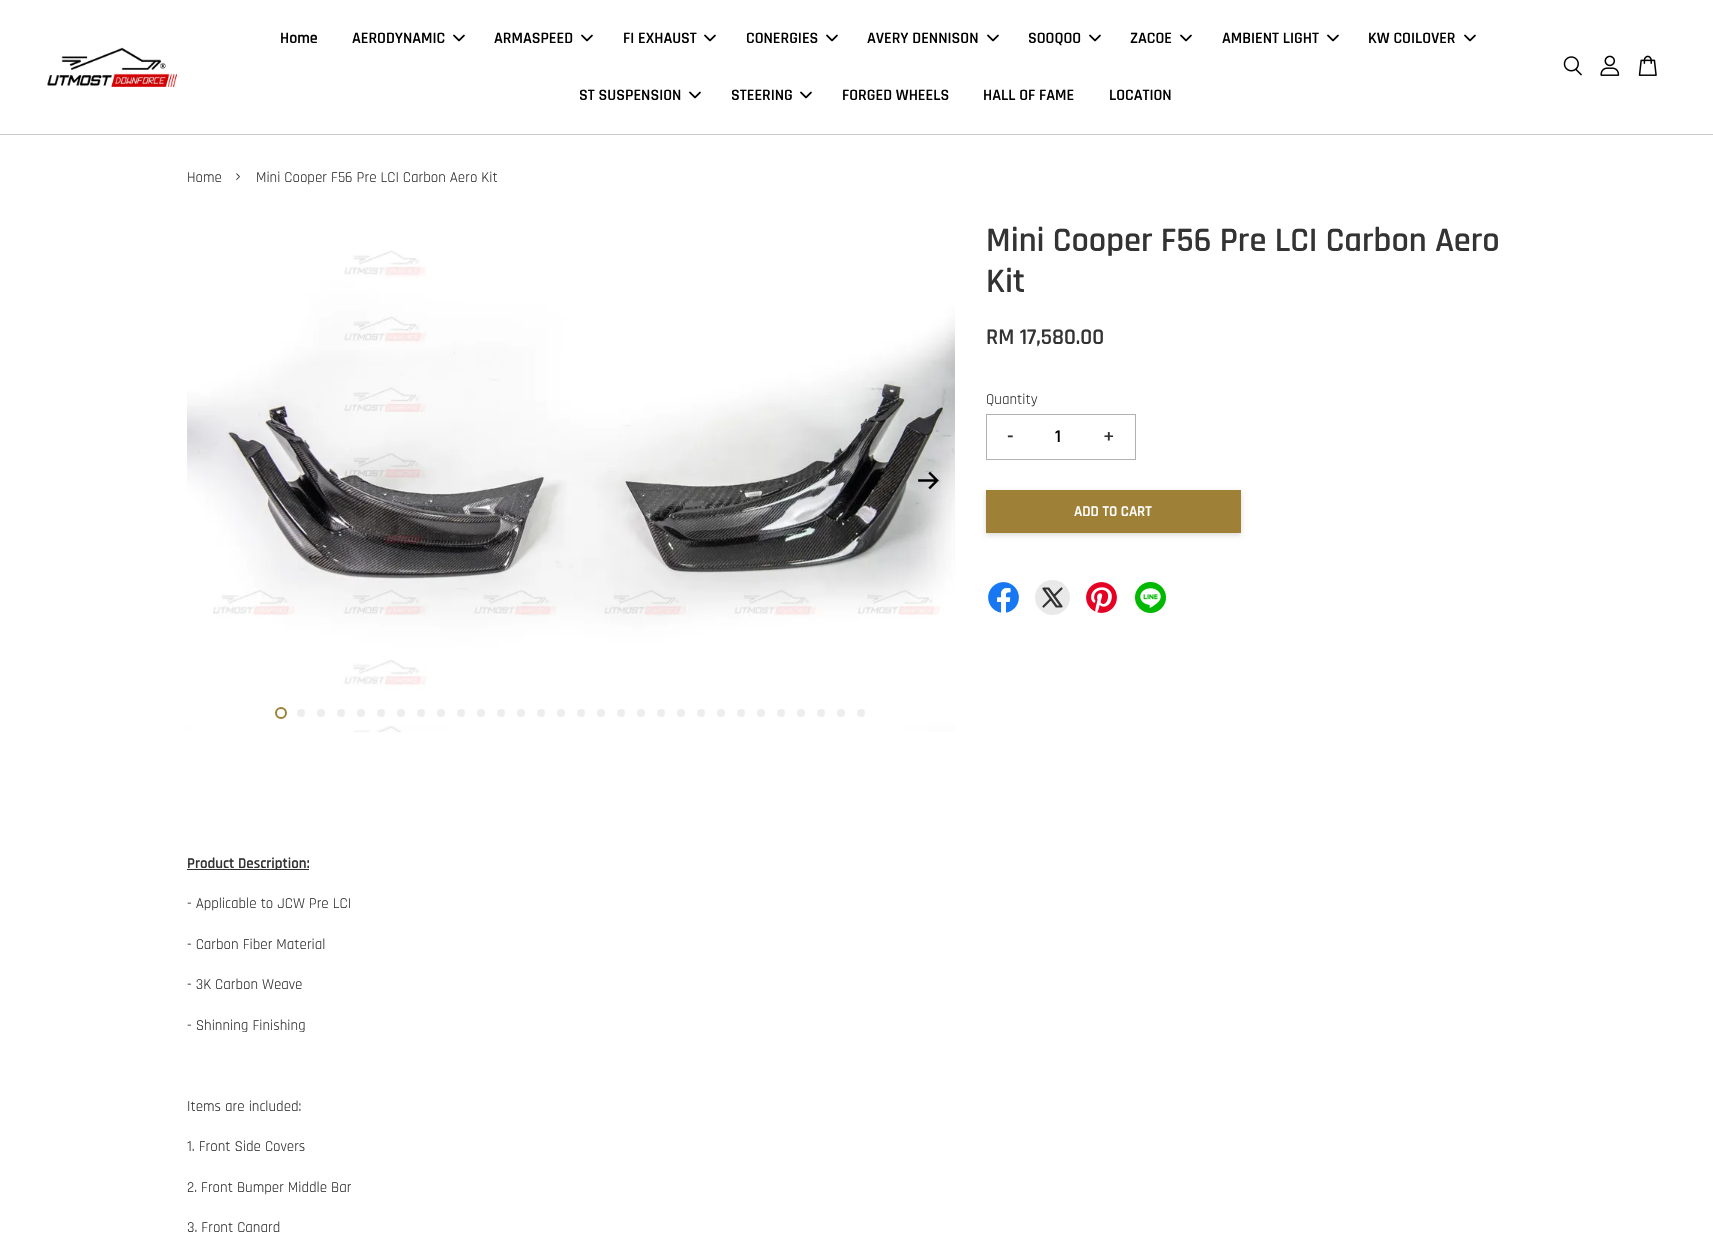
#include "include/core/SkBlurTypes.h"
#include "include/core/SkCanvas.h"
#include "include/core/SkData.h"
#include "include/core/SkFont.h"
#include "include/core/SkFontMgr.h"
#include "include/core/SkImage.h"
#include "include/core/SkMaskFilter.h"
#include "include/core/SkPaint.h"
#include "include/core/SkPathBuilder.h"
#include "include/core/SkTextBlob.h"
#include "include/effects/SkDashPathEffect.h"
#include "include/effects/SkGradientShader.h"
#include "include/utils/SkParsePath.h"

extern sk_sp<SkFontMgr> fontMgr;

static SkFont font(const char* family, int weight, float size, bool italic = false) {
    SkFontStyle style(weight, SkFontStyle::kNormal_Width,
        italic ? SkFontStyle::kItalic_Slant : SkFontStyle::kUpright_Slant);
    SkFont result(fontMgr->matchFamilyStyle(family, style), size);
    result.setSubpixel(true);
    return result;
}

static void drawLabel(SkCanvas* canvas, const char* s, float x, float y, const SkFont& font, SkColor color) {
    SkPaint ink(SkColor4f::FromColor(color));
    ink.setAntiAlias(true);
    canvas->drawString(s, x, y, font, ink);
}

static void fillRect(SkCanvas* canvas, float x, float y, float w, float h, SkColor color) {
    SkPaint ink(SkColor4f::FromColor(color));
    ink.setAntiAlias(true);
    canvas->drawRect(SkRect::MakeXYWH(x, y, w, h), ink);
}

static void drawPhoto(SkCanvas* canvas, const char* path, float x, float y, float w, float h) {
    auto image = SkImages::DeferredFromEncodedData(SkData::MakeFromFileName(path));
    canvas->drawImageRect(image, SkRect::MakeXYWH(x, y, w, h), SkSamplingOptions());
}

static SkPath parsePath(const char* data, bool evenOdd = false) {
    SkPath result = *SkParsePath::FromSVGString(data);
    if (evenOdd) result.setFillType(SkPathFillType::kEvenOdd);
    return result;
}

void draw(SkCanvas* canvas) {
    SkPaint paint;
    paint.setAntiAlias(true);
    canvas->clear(0xFFFFFFFF);
    fillRect(canvas, 0, 134, 1713, 1, 0xFFCCCCCC);
    drawPhoto(canvas, "assets/img1.png", 47, 47, 130, 40);
    SkFont font1 = font("Rajdhani", 600, 16);
    drawLabel(canvas, "Home", 280, 43, font1, 0xFF000000);
    drawLabel(canvas, "AERODYNAMIC", 352, 43, font1, 0xFF000000);
    drawPhoto(canvas, "assets/img2.png", 453, 34, 12, 8);
    drawLabel(canvas, "ARMASPEED", 494, 43, font1, 0xFF000000);
    drawPhoto(canvas, "assets/img2.png", 581, 34, 12, 8);
    drawLabel(canvas, "FI EXHAUST", 623, 43, font1, 0xFF000000);
    drawPhoto(canvas, "assets/img2.png", 704, 34, 12, 8);
    drawLabel(canvas, "CONERGIES", 746, 43, font1, 0xFF000000);
    drawPhoto(canvas, "assets/img2.png", 826, 34, 12, 8);
    drawLabel(canvas, "AVERY DENNISON", 867, 43, font1, 0xFF000000);
    drawPhoto(canvas, "assets/img2.png", 987, 34, 12, 8);
    drawLabel(canvas, "SOOQOO", 1028, 43, font1, 0xFF000000);
    drawPhoto(canvas, "assets/img2.png", 1089, 34, 12, 8);
    drawLabel(canvas, "ZACOE", 1130, 43, font1, 0xFF000000);
    drawPhoto(canvas, "assets/img2.png", 1180, 34, 12, 8);
    drawLabel(canvas, "AMBIENT LIGHT", 1222, 43, font1, 0xFF000000);
    drawPhoto(canvas, "assets/img2.png", 1327, 34, 12, 8);
    drawLabel(canvas, "KW COILOVER", 1368, 43, font1, 0xFF000000);
    drawPhoto(canvas, "assets/img2.png", 1464, 34, 12, 8);
    drawLabel(canvas, "ST SUSPENSION", 579, 100, font1, 0xFF000000);
    drawPhoto(canvas, "assets/img2.png", 689, 91, 12, 8);
    drawLabel(canvas, "STEERING", 731, 100, font1, 0xFF000000);
    drawPhoto(canvas, "assets/img2.png", 800, 91, 12, 8);
    drawLabel(canvas, "FORGED WHEELS", 842, 100, font1, 0xFF000000);
    drawLabel(canvas, "HALL OF FAME", 983, 100, font1, 0xFF000000);
    drawLabel(canvas, "LOCATION", 1109, 100, font1, 0xFF000000);
    drawPhoto(canvas, "assets/img3.png", 1563, 56, 19, 20);
    drawPhoto(canvas, "assets/img4.png", 1600, 55, 20, 21);
    drawPhoto(canvas, "assets/img5.png", 1638, 55, 19, 21);
    SkFont font2 = font("Rajdhani", 400, 15);
    drawLabel(canvas, "Home", 187, 182, font2, 0xFF333333);
    SkFont font3 = font("Rajdhani", 400, 21);
    drawLabel(canvas, "›", 235, 182, font3, 0xFF333333);
    drawLabel(canvas, "Mini Cooper F56 Pre LCI Carbon Aero Kit", 256, 182, font2, 0xFF333333);
    drawPhoto(canvas, "assets/img6.png", 187, 250, 768, 483);
    drawPhoto(canvas, "assets/img7.png", 918, 471, 21, 19);
    paint.setStroke(true);
    paint.setStrokeWidth(2);
    paint.setColor(0xFF9E8137);
    canvas->drawCircle(281, 713, 5, paint);
    paint.setStroke(false);
    paint.setColor(0xFFEDEDED);
    canvas->drawCircle(301, 713, 5, paint);
    paint.setStroke(true);
    paint.setColor(0xFFFFFFFF);
    canvas->drawCircle(301, 713, 5, paint);
    paint.setStroke(false);
    paint.setColor(0xFFEDEDED);
    canvas->drawCircle(321, 713, 5, paint);
    paint.setStroke(true);
    paint.setColor(0xFFFFFFFF);
    canvas->drawCircle(321, 713, 5, paint);
    paint.setStroke(false);
    paint.setColor(0xFFEDEDED);
    canvas->drawCircle(341, 713, 5, paint);
    paint.setStroke(true);
    paint.setColor(0xFFFFFFFF);
    canvas->drawCircle(341, 713, 5, paint);
    paint.setStroke(false);
    paint.setColor(0xFFEDEDED);
    canvas->drawCircle(361, 713, 5, paint);
    paint.setStroke(true);
    paint.setColor(0xFFFFFFFF);
    canvas->drawCircle(361, 713, 5, paint);
    paint.setStroke(false);
    paint.setColor(0xFFEDEDED);
    canvas->drawCircle(381, 713, 5, paint);
    paint.setStroke(true);
    paint.setColor(0xFFFFFFFF);
    canvas->drawCircle(381, 713, 5, paint);
    paint.setStroke(false);
    paint.setColor(0xFFEDEDED);
    canvas->drawCircle(401, 713, 5, paint);
    paint.setStroke(true);
    paint.setColor(0xFFFFFFFF);
    canvas->drawCircle(401, 713, 5, paint);
    paint.setStroke(false);
    paint.setColor(0xFFEDEDED);
    canvas->drawCircle(421, 713, 5, paint);
    paint.setStroke(true);
    paint.setColor(0xFFFFFFFF);
    canvas->drawCircle(421, 713, 5, paint);
    paint.setStroke(false);
    paint.setColor(0xFFEDEDED);
    canvas->drawCircle(441, 713, 5, paint);
    paint.setStroke(true);
    paint.setColor(0xFFFFFFFF);
    canvas->drawCircle(441, 713, 5, paint);
    paint.setStroke(false);
    paint.setColor(0xFFEDEDED);
    canvas->drawCircle(461, 713, 5, paint);
    paint.setStroke(true);
    paint.setColor(0xFFFFFFFF);
    canvas->drawCircle(461, 713, 5, paint);
    paint.setStroke(false);
    paint.setColor(0xFFEDEDED);
    canvas->drawCircle(481, 713, 5, paint);
    paint.setStroke(true);
    paint.setColor(0xFFFFFFFF);
    canvas->drawCircle(481, 713, 5, paint);
    paint.setStroke(false);
    paint.setColor(0xFFEDEDED);
    canvas->drawCircle(501, 713, 5, paint);
    paint.setStroke(true);
    paint.setColor(0xFFFFFFFF);
    canvas->drawCircle(501, 713, 5, paint);
    paint.setStroke(false);
    paint.setColor(0xFFEDEDED);
    canvas->drawCircle(521, 713, 5, paint);
    paint.setStroke(true);
    paint.setColor(0xFFFFFFFF);
    canvas->drawCircle(521, 713, 5, paint);
    paint.setStroke(false);
    paint.setColor(0xFFEDEDED);
    canvas->drawCircle(541, 713, 5, paint);
    paint.setStroke(true);
    paint.setColor(0xFFFFFFFF);
    canvas->drawCircle(541, 713, 5, paint);
    paint.setStroke(false);
    paint.setColor(0xFFEDEDED);
    canvas->drawCircle(561, 713, 5, paint);
    paint.setStroke(true);
    paint.setColor(0xFFFFFFFF);
    canvas->drawCircle(561, 713, 5, paint);
    paint.setStroke(false);
    paint.setColor(0xFFEDEDED);
    canvas->drawCircle(581, 713, 5, paint);
    paint.setStroke(true);
    paint.setColor(0xFFFFFFFF);
    canvas->drawCircle(581, 713, 5, paint);
    paint.setStroke(false);
    paint.setColor(0xFFEDEDED);
    canvas->drawCircle(601, 713, 5, paint);
    paint.setStroke(true);
    paint.setColor(0xFFFFFFFF);
    canvas->drawCircle(601, 713, 5, paint);
    paint.setStroke(false);
    paint.setColor(0xFFEDEDED);
    canvas->drawCircle(621, 713, 5, paint);
    paint.setStroke(true);
    paint.setColor(0xFFFFFFFF);
    canvas->drawCircle(621, 713, 5, paint);
    paint.setStroke(false);
    paint.setColor(0xFFEDEDED);
    canvas->drawCircle(641, 713, 5, paint);
    paint.setStroke(true);
    paint.setColor(0xFFFFFFFF);
    canvas->drawCircle(641, 713, 5, paint);
    paint.setStroke(false);
    paint.setColor(0xFFEDEDED);
    canvas->drawCircle(661, 713, 5, paint);
    paint.setStroke(true);
    paint.setColor(0xFFFFFFFF);
    canvas->drawCircle(661, 713, 5, paint);
    paint.setStroke(false);
    paint.setColor(0xFFEDEDED);
    canvas->drawCircle(681, 713, 5, paint);
    paint.setStroke(true);
    paint.setColor(0xFFFFFFFF);
    canvas->drawCircle(681, 713, 5, paint);
    paint.setStroke(false);
    paint.setColor(0xFFEDEDED);
    canvas->drawCircle(701, 713, 5, paint);
    paint.setStroke(true);
    paint.setColor(0xFFFFFFFF);
    canvas->drawCircle(701, 713, 5, paint);
    paint.setStroke(false);
    paint.setColor(0xFFEDEDED);
    canvas->drawCircle(721, 713, 5, paint);
    paint.setStroke(true);
    paint.setColor(0xFFFFFFFF);
    canvas->drawCircle(721, 713, 5, paint);
    paint.setStroke(false);
    paint.setColor(0xFFEDEDED);
    canvas->drawCircle(741, 713, 5, paint);
    paint.setStroke(true);
    paint.setColor(0xFFFFFFFF);
    canvas->drawCircle(741, 713, 5, paint);
    paint.setStroke(false);
    paint.setColor(0xFFEDEDED);
    canvas->drawCircle(761, 713, 5, paint);
    paint.setStroke(true);
    paint.setColor(0xFFFFFFFF);
    canvas->drawCircle(761, 713, 5, paint);
    paint.setStroke(false);
    paint.setColor(0xFFEDEDED);
    canvas->drawCircle(781, 713, 5, paint);
    paint.setStroke(true);
    paint.setColor(0xFFFFFFFF);
    canvas->drawCircle(781, 713, 5, paint);
    paint.setStroke(false);
    paint.setColor(0xFFEDEDED);
    canvas->drawCircle(801, 713, 5, paint);
    paint.setStroke(true);
    paint.setColor(0xFFFFFFFF);
    canvas->drawCircle(801, 713, 5, paint);
    paint.setStroke(false);
    paint.setColor(0xFFEDEDED);
    canvas->drawCircle(821, 713, 5, paint);
    paint.setStroke(true);
    paint.setColor(0xFFFFFFFF);
    canvas->drawCircle(821, 713, 5, paint);
    paint.setStroke(false);
    paint.setColor(0xFFEDEDED);
    canvas->drawCircle(841, 713, 5, paint);
    paint.setStroke(true);
    paint.setColor(0xFFFFFFFF);
    canvas->drawCircle(841, 713, 5, paint);
    paint.setStroke(false);
    paint.setColor(0xFFEDEDED);
    canvas->drawCircle(861, 713, 5, paint);
    paint.setStroke(true);
    paint.setColor(0xFFFFFFFF);
    canvas->drawCircle(861, 713, 5, paint);
    SkFont font4 = font("Rajdhani", 600, 34.5f);
    drawLabel(canvas, "Mini Cooper F56 Pre LCI Carbon Aero", 986, 251, font4, 0xFF333333);
    drawLabel(canvas, "Kit", 986, 292, font4, 0xFF333333);
    SkFont font5 = font("Rajdhani", 600, 22.5f);
    drawLabel(canvas, "RM 17,580.00", 986, 344, font5, 0xFF333333);
    drawLabel(canvas, "Quantity", 986, 404, font2, 0xFF333333);
    paint.setStrokeWidth(1);
    paint.setColor(0xFFB1B1B1);
    canvas->drawRect(SkRect::MakeXYWH(986.5f, 414.5f, 149, 45), paint);
    SkFont font6 = font("Rajdhani", 600, 21);
    drawLabel(canvas, "-", 1007, 443, font6, 0xFF333333);
    SkFont font7 = font("Rajdhani", 600, 18);
    drawLabel(canvas, "1", 1055, 442, font7, 0xFF000000);
    drawLabel(canvas, "+", 1103, 443, font6, 0xFF333333);
    paint.setStroke(false);
    paint.setColor(0x26000000);
    paint.setMaskFilter(SkMaskFilter::MakeBlur(kNormal_SkBlurStyle, 2.5f));
    canvas->drawRect(SkRect::MakeXYWH(986, 492, 255, 43), paint);
    paint.setMaskFilter(nullptr);
    fillRect(canvas, 986, 490, 255, 43, 0xFF9E8137);
    SkFont font8 = font("Rajdhani", 600, 15);
    drawLabel(canvas, "ADD TO CART", 1074, 516, font8, 0xFFFFFFFF);
    drawPhoto(canvas, "assets/img8.png", 988, 582, 31, 31);
    paint.setColor(0xFFE9E9E9);
    canvas->drawCircle(1052.5f, 597.5f, 17.5f, paint);
    paint.setStroke(true);
    paint.setStrokeWidth(2.2f);
    paint.setStrokeCap(SkPaint::kRound_Cap);
    paint.setStrokeJoin(SkPaint::kRound_Join);
    paint.setColor(0xFF333333);
    canvas->drawPath(parsePath("M1043.5 588.5L1056.5 606.5H1061.5L1048.5 588.5ZM1043.5 606.5L1051 599M1054 596L1061.5 588.5"), paint);
    drawPhoto(canvas, "assets/img9.png", 1086, 582, 31, 31);
    drawPhoto(canvas, "assets/img10.png", 1135, 582, 31, 31);
    fillRect(canvas, 187, 869, 122, 1, 0xFF333333);
    drawLabel(canvas, "Product Description:", 187, 868, font8, 0xFF333333);
    drawLabel(canvas, "- Applicable to JCW Pre LCI", 187, 908, font2, 0xFF333333);
    drawLabel(canvas, "- Carbon Fiber Material", 187, 949, font2, 0xFF333333);
    drawLabel(canvas, "- 3K Carbon Weave", 187, 989, font2, 0xFF333333);
    drawLabel(canvas, "- Shinning Finishing", 187, 1030, font2, 0xFF333333);
    drawLabel(canvas, "Items are included:", 187, 1111, font2, 0xFF333333);
    drawLabel(canvas, "1. Front Side Covers", 187, 1151, font2, 0xFF333333);
    drawLabel(canvas, "2. Front Bumper Middle Bar", 187, 1192, font2, 0xFF333333);
    drawLabel(canvas, "3. Front Canard", 187, 1232, font2, 0xFF333333);
}
